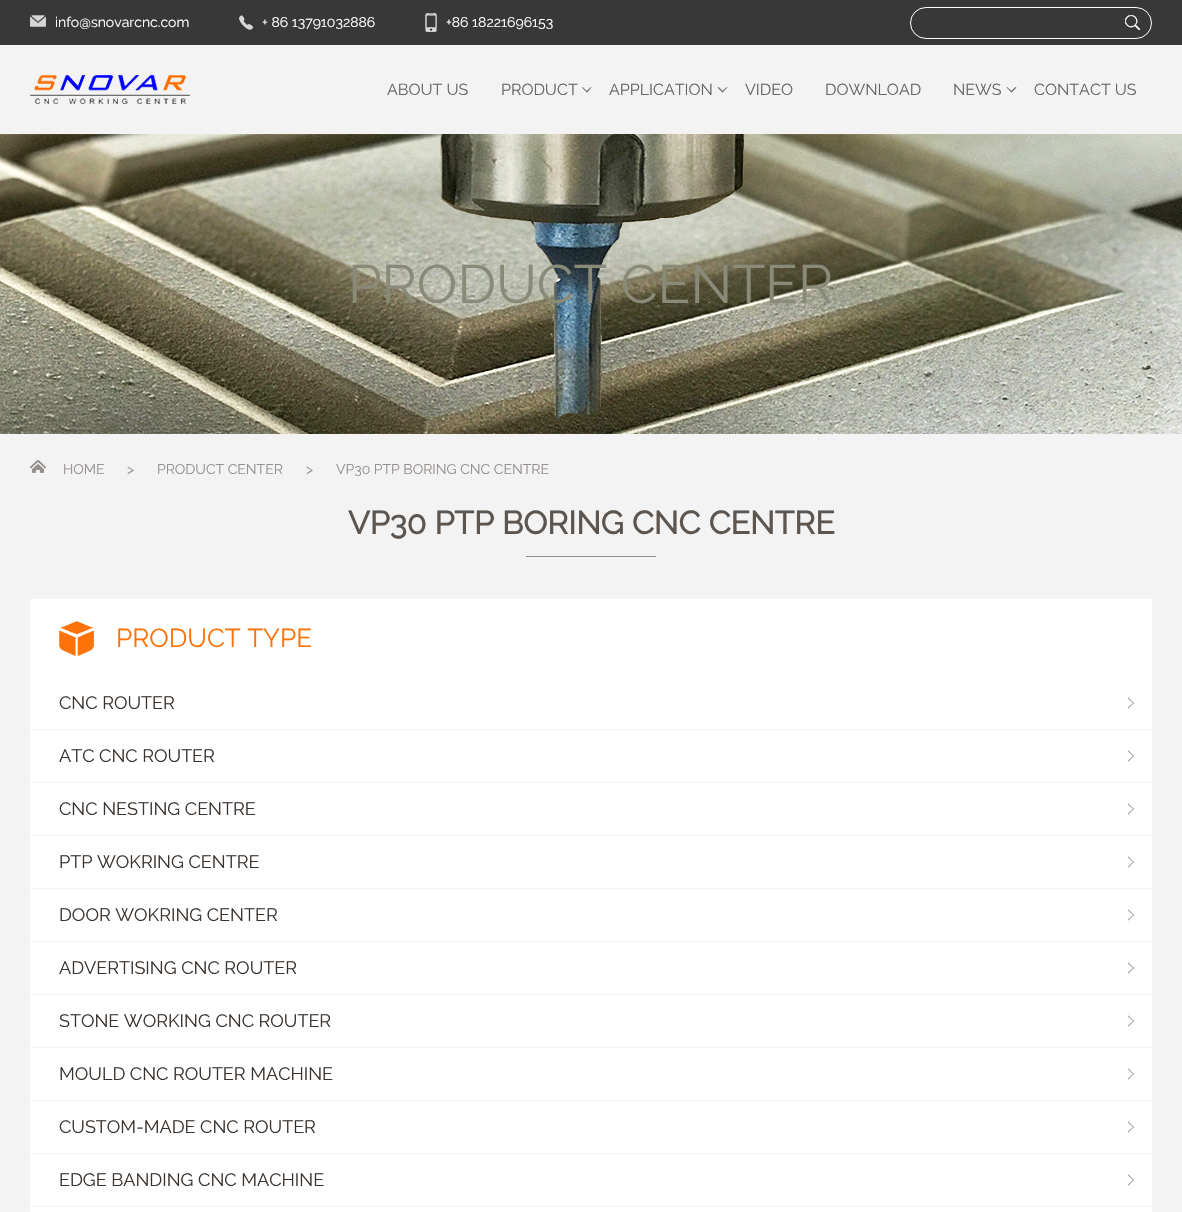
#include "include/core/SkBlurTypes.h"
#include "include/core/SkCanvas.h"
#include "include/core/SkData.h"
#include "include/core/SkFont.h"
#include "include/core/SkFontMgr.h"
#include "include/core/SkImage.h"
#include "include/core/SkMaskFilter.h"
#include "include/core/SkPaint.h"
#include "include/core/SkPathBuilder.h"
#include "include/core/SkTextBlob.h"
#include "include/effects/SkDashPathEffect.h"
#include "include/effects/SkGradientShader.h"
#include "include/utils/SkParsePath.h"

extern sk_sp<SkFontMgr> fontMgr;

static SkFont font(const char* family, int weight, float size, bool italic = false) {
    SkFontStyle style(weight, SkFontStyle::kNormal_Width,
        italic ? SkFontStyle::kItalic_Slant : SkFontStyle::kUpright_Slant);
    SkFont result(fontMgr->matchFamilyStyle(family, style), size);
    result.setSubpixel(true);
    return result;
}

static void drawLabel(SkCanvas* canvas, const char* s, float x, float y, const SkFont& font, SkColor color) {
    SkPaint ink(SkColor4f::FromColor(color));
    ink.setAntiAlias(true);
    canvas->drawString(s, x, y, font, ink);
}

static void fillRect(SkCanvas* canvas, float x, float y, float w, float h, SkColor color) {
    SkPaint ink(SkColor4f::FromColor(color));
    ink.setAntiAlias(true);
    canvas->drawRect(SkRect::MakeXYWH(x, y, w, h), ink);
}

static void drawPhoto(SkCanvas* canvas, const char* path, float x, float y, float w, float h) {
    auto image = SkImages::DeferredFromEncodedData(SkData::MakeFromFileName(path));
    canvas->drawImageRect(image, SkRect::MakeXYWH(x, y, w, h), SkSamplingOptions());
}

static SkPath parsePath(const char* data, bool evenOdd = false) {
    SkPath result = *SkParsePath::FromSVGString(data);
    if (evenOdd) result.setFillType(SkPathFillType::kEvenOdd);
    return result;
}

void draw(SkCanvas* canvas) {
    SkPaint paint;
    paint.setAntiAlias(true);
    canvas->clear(0xFFF3F3F3);
    fillRect(canvas, 0, 0, 1182, 45, 0xFF383838);
    drawPhoto(canvas, "assets/img1.png", 30, 15, 16, 12);
    SkFont font1 = font("Raleway", 400, 14);
    drawLabel(canvas, "info@snovarcnc.com", 55, 27, font1, 0xFFFFFFFF);
    drawPhoto(canvas, "assets/img2.png", 239, 15, 14, 15);
    drawLabel(canvas, "+ 86 13791032886", 262, 27, font1, 0xFFFFFFFF);
    drawPhoto(canvas, "assets/img3.png", 425, 13, 12, 19);
    drawLabel(canvas, "+86 18221696153", 446, 27, font1, 0xFFFFFFFF);
    paint.setStroke(true);
    paint.setStrokeWidth(1);
    paint.setColor(0xFFFFFFFF);
    canvas->drawRoundRect(SkRect::MakeXYWH(910.5f, 7.5f, 241, 31), 15.5f, 15.5f, paint);
    drawPhoto(canvas, "assets/img4.png", 1125, 15, 15, 15);
    drawPhoto(canvas, "assets/img5.png", 30, 75, 160, 29);
    SkFont font2 = font("Raleway", 400, 16);
    drawLabel(canvas, "ABOUT US", 387, 95, font2, 0xFF666666);
    drawLabel(canvas, "PRODUCT", 501, 95, font2, 0xFF666666);
    paint.setStroke(false);
    paint.setColor(0xFF666666);
    canvas->drawPath(parsePath("M591.5 87.5L587 92.5L586 91.5L591 87Z"), paint);
    canvas->drawPath(parsePath("M587.5 91.5L587 92.5L582 87.5L582.5 87Z"), paint);
    drawLabel(canvas, "APPLICATION", 609, 95, font2, 0xFF666666);
    canvas->drawPath(parsePath("M727.5 87.5L722.5 92.5L722 91.5L727 87Z"), paint);
    canvas->drawPath(parsePath("M723.5 91.5L722.5 92.5L717.5 87.5L718.5 87Z"), paint);
    drawLabel(canvas, "VIDEO", 745, 95, font2, 0xFF666666);
    drawLabel(canvas, "DOWNLOAD", 825, 95, font2, 0xFF666666);
    drawLabel(canvas, "NEWS", 953, 95, font2, 0xFF666666);
    canvas->drawPath(parsePath("M1016.5 87.5L1011.5 92.5L1010.5 91.5L1015.5 87Z"), paint);
    canvas->drawPath(parsePath("M1012 91.5L1011.5 92.5L1006.5 87.5L1007 87Z"), paint);
    drawLabel(canvas, "CONTACT US", 1034, 95, font2, 0xFF666666);
    drawPhoto(canvas, "assets/img6.png", 0, 134, 1182, 300);
    SkFont font3 = font("Raleway", 400, 54);
    drawLabel(canvas, "PRODUCT CENTER", 348, 303, font3, 0xFF898A78);
    drawPhoto(canvas, "assets/img7.png", 30, 460, 16, 13);
    drawLabel(canvas, "HOME", 63, 474, font1, 0xFF96918E);
    drawLabel(canvas, ">", 127, 474, font1, 0xFF96918E);
    drawLabel(canvas, "PRODUCT CENTER", 157, 474, font1, 0xFF96918E);
    drawLabel(canvas, ">", 306, 474, font1, 0xFF96918E);
    drawLabel(canvas, "VP30 PTP BORING CNC CENTRE", 336, 474, font1, 0xFF96918E);
    SkFont font4 = font("Raleway", 700, 32);
    drawLabel(canvas, "VP30 PTP BORING CNC CENTRE", 348, 534, font4, 0xFF5D5650);
    fillRect(canvas, 526, 556, 130, 1, 0xFF92908F);
    fillRect(canvas, 30, 599, 1122, 130, 0xFFFFFFFF);
    drawPhoto(canvas, "assets/img8.png", 59, 621, 35, 35);
    SkFont font5 = font("Raleway", 400, 26);
    drawLabel(canvas, "PRODUCT TYPE", 116, 647, font5, 0xFFFD7209);
    SkFont font6 = font("Raleway", 400, 18);
    drawLabel(canvas, "CNC ROUTER", 59, 709, font6, 0xFF39322D);
    paint.setColor(0xFF999999);
    canvas->drawPath(parsePath("M1128.5 697.5L1134 703L1133.5 703.5L1127.5 698Z"), paint);
    canvas->drawPath(parsePath("M1133.5 702.5L1134 703L1128.5 708.5L1127.5 708Z"), paint);
    fillRect(canvas, 30, 730, 1122, 52, 0xFFFFFFFF);
    drawLabel(canvas, "ATC CNC ROUTER", 59, 762, font6, 0xFF39322D);
    canvas->drawPath(parsePath("M1128.5 750.5L1134 756L1133.5 756.5L1127.5 751Z"), paint);
    canvas->drawPath(parsePath("M1133.5 755.5L1134 756L1128.5 761.5L1127.5 761Z"), paint);
    fillRect(canvas, 30, 783, 1122, 52, 0xFFFFFFFF);
    drawLabel(canvas, "CNC NESTING CENTRE", 59, 815, font6, 0xFF39322D);
    canvas->drawPath(parsePath("M1128.5 803.5L1134 809L1133.5 809.5L1127.5 804Z"), paint);
    canvas->drawPath(parsePath("M1133.5 808.5L1134 809L1128.5 814.5L1127.5 814Z"), paint);
    fillRect(canvas, 30, 836, 1122, 52, 0xFFFFFFFF);
    drawLabel(canvas, "PTP WOKRING CENTRE", 59, 868, font6, 0xFF39322D);
    canvas->drawPath(parsePath("M1128.5 856.5L1134 862L1133.5 862.5L1127.5 857Z"), paint);
    canvas->drawPath(parsePath("M1133.5 861.5L1134 862L1128.5 867.5L1127.5 867Z"), paint);
    fillRect(canvas, 30, 889, 1122, 52, 0xFFFFFFFF);
    drawLabel(canvas, "DOOR WOKRING CENTER", 59, 921, font6, 0xFF39322D);
    canvas->drawPath(parsePath("M1128.5 909.5L1134 915L1133.5 915.5L1127.5 910Z"), paint);
    canvas->drawPath(parsePath("M1133.5 914.5L1134 915L1128.5 920.5L1127.5 920Z"), paint);
    fillRect(canvas, 30, 942, 1122, 52, 0xFFFFFFFF);
    drawLabel(canvas, "ADVERTISING CNC ROUTER", 59, 974, font6, 0xFF39322D);
    canvas->drawPath(parsePath("M1128.5 962.5L1134 968L1133.5 968.5L1127.5 963Z"), paint);
    canvas->drawPath(parsePath("M1133.5 967.5L1134 968L1128.5 973.5L1127.5 973Z"), paint);
    fillRect(canvas, 30, 995, 1122, 52, 0xFFFFFFFF);
    drawLabel(canvas, "STONE WORKING CNC ROUTER", 59, 1027, font6, 0xFF39322D);
    canvas->drawPath(parsePath("M1128.5 1015.5L1134 1021L1133.5 1021.5L1127.5 1016Z"), paint);
    canvas->drawPath(parsePath("M1133.5 1020.5L1134 1021L1128.5 1026.5L1127.5 1026Z"), paint);
    fillRect(canvas, 30, 1048, 1122, 52, 0xFFFFFFFF);
    drawLabel(canvas, "MOULD CNC ROUTER MACHINE", 59, 1080, font6, 0xFF39322D);
    canvas->drawPath(parsePath("M1128.5 1068.5L1134 1074L1133.5 1074.5L1127.5 1069Z"), paint);
    canvas->drawPath(parsePath("M1133.5 1073.5L1134 1074L1128.5 1079.5L1127.5 1079Z"), paint);
    fillRect(canvas, 30, 1101, 1122, 52, 0xFFFFFFFF);
    drawLabel(canvas, "CUSTOM-MADE CNC ROUTER", 59, 1133, font6, 0xFF39322D);
    canvas->drawPath(parsePath("M1128.5 1121.5L1134 1127L1133.5 1127.5L1127.5 1122Z"), paint);
    canvas->drawPath(parsePath("M1133.5 1126.5L1134 1127L1128.5 1132.5L1127.5 1132Z"), paint);
    fillRect(canvas, 30, 1154, 1122, 52, 0xFFFFFFFF);
    drawLabel(canvas, "EDGE BANDING CNC MACHINE", 59, 1186, font6, 0xFF39322D);
    canvas->drawPath(parsePath("M1128.5 1174.5L1134 1180L1133.5 1180.5L1127.5 1175Z"), paint);
    canvas->drawPath(parsePath("M1133.5 1179.5L1134 1180L1128.5 1185.5L1127.5 1185Z"), paint);
    fillRect(canvas, 30, 1207, 1122, 5, 0xFFFFFFFF);
}
